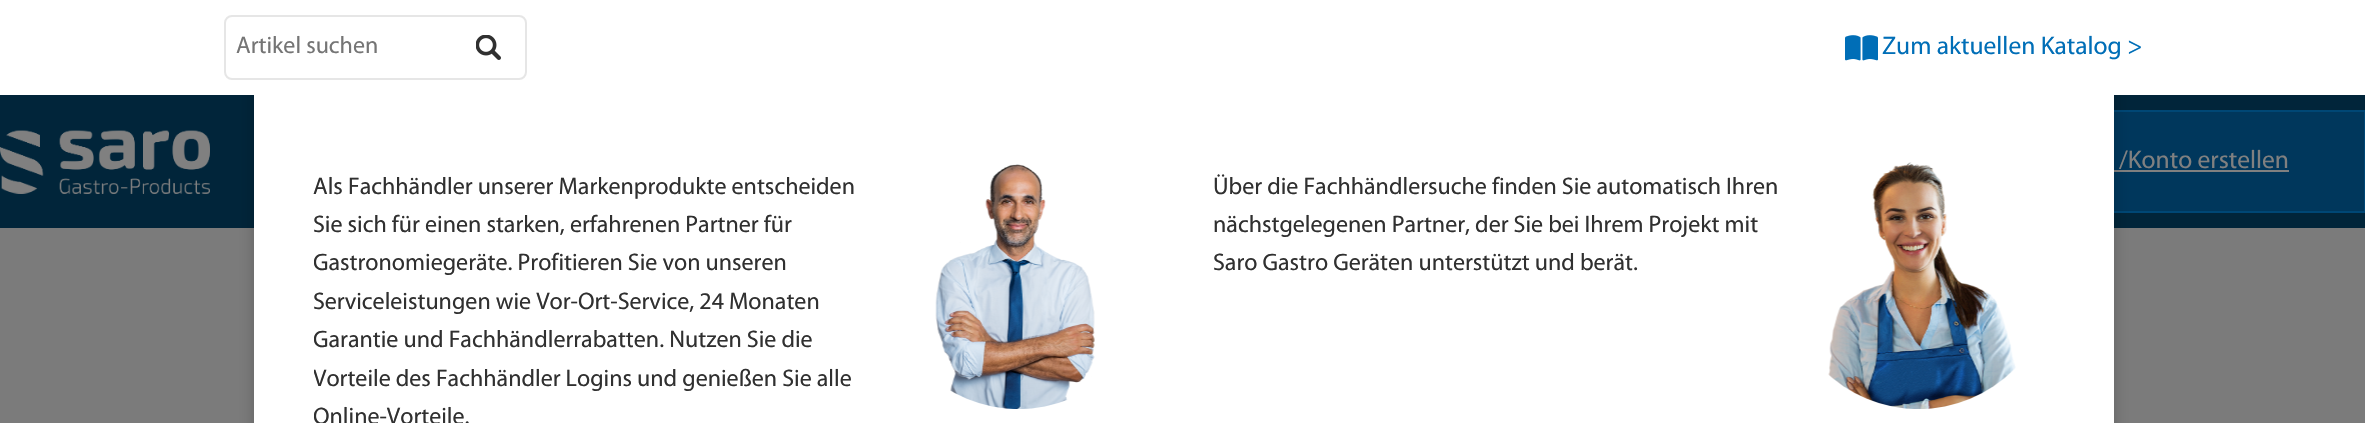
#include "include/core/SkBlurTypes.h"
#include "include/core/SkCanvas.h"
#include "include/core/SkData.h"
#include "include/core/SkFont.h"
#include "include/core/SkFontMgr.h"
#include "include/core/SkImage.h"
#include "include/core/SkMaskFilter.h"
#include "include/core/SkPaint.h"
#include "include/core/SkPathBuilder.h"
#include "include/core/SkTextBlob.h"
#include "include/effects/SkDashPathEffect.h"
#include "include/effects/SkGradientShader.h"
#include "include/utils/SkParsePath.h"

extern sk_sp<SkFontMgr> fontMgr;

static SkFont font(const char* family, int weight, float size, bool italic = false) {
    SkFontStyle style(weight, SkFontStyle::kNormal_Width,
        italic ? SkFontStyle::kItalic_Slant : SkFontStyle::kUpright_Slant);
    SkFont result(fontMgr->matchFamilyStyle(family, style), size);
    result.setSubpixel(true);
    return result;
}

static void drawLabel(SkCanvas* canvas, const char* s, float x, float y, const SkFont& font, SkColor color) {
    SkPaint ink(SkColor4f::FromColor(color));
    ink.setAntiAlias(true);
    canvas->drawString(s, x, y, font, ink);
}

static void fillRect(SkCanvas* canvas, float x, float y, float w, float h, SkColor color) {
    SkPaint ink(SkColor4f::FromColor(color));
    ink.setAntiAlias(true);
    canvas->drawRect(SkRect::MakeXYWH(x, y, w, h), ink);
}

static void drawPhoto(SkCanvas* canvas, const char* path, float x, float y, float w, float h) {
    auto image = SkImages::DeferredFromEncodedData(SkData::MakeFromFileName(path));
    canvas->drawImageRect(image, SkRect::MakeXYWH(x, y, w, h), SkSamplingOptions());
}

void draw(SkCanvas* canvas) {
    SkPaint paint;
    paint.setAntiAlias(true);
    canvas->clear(0xFF7B7B7B);
    fillRect(canvas, 0, 95, 2365, 133, 0xFF01253A);
    fillRect(canvas, 2114, 112, 250, 99, 0xFF00375C);
    paint.setStroke(true);
    paint.setStrokeWidth(2);
    paint.setColor(0xFF004775);
    canvas->drawRect(SkRect::MakeXYWH(1957, 111, 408, 101), paint);
    fillRect(canvas, 2114, 170, 175, 2, 0xFF808080);
    paint.setStroke(false);
    paint.setColor(0x33000000);
    paint.setMaskFilter(SkMaskFilter::MakeBlur(kNormal_SkBlurStyle, 7.5f));
    canvas->drawRect(SkRect::MakeXYWH(254, -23, 1860, 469), paint);
    paint.setMaskFilter(nullptr);
    fillRect(canvas, 0, 0, 2365, 95, 0xFFFFFFFF);
    paint.setStroke(true);
    paint.setColor(0xFFE6E6E6);
    canvas->drawRoundRect(SkRect::MakeXYWH(225, 16, 301, 63), 7, 7, paint);
    SkFont font1 = font("Myriad", 400, 24);
    drawLabel(canvas, "Artikel suchen", 236, 53, font1, 0xFF757575);
    drawPhoto(canvas, "assets/img1.png", 476, 35, 25, 25);
    drawPhoto(canvas, "assets/img2.png", 1845, 35, 33, 26);
    SkFont font2 = font("Myriad", 400, 25.5f);
    drawLabel(canvas, "Zum aktuellen Katalog >", 1882, 54, font2, 0xFF006EB7);
    drawPhoto(canvas, "assets/img3.png", 0, 130, 210, 64);
    drawLabel(canvas, "/Konto erstellen", 2119, 168, font2, 0xFF808080);
    fillRect(canvas, 254, 95, 1860, 328, 0xFFFFFFFF);
    drawLabel(canvas, "Als Fachhändler unserer Markenprodukte entscheiden", 313, 194, font1, 0xFF303030);
    drawLabel(canvas, "Sie sich für einen starken, erfahrenen Partner für", 313, 232, font1, 0xFF303030);
    canvas->save();
    canvas->clipRect(SkRect::MakeXYWH(314, 140, 570, 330));
    drawLabel(canvas, "Gastronomiegeräte. Profitieren Sie von unseren", 313, 270, font1, 0xFF303030);
    canvas->restore();
    drawLabel(canvas, "Serviceleistungen wie Vor-Ort-Service, 24 Monaten", 313, 309, font1, 0xFF303030);
    canvas->save();
    canvas->clipRect(SkRect::MakeXYWH(314, 140, 570, 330));
    drawLabel(canvas, "Garantie und Fachhändlerrabatten. Nutzen Sie die", 313, 347, font1, 0xFF303030);
    drawLabel(canvas, "Vorteile des Fachhändler Logins und genießen Sie alle", 313, 386, font1, 0xFF303030);
    drawLabel(canvas, "Online-Vorteile.", 313, 424, font1, 0xFF303030);
    canvas->restore();
    drawPhoto(canvas, "assets/img4.png", 935, 164, 160, 245);
    drawLabel(canvas, "Über die Fachhändlersuche finden Sie automatisch Ihren", 1213, 194, font1, 0xFF303030);
    drawLabel(canvas, "nächstgelegenen Partner, der Sie bei Ihrem Projekt mit", 1213, 232, font1, 0xFF303030);
    drawLabel(canvas, "Saro Gastro Geräten unterstützt und berät.", 1213, 270, font1, 0xFF303030);
    drawPhoto(canvas, "assets/img5.png", 1828, 162, 188, 247);
}
